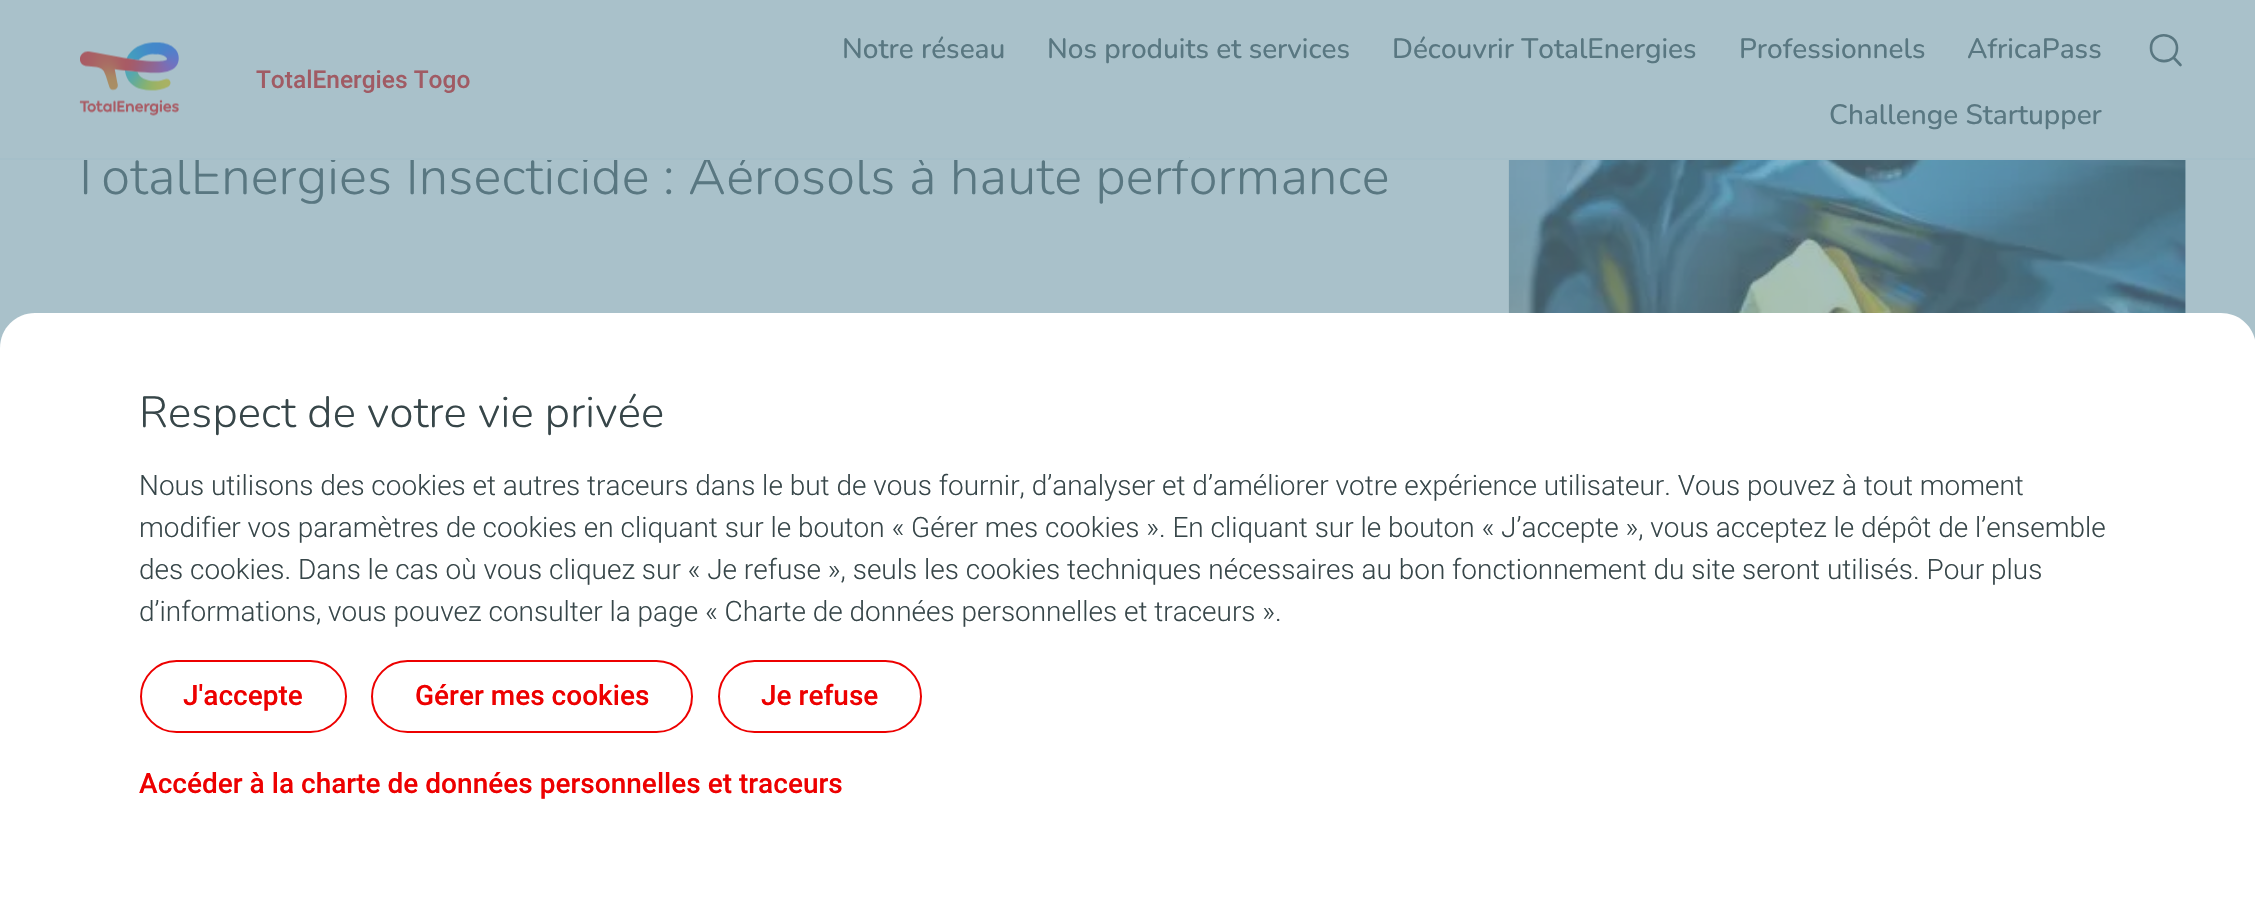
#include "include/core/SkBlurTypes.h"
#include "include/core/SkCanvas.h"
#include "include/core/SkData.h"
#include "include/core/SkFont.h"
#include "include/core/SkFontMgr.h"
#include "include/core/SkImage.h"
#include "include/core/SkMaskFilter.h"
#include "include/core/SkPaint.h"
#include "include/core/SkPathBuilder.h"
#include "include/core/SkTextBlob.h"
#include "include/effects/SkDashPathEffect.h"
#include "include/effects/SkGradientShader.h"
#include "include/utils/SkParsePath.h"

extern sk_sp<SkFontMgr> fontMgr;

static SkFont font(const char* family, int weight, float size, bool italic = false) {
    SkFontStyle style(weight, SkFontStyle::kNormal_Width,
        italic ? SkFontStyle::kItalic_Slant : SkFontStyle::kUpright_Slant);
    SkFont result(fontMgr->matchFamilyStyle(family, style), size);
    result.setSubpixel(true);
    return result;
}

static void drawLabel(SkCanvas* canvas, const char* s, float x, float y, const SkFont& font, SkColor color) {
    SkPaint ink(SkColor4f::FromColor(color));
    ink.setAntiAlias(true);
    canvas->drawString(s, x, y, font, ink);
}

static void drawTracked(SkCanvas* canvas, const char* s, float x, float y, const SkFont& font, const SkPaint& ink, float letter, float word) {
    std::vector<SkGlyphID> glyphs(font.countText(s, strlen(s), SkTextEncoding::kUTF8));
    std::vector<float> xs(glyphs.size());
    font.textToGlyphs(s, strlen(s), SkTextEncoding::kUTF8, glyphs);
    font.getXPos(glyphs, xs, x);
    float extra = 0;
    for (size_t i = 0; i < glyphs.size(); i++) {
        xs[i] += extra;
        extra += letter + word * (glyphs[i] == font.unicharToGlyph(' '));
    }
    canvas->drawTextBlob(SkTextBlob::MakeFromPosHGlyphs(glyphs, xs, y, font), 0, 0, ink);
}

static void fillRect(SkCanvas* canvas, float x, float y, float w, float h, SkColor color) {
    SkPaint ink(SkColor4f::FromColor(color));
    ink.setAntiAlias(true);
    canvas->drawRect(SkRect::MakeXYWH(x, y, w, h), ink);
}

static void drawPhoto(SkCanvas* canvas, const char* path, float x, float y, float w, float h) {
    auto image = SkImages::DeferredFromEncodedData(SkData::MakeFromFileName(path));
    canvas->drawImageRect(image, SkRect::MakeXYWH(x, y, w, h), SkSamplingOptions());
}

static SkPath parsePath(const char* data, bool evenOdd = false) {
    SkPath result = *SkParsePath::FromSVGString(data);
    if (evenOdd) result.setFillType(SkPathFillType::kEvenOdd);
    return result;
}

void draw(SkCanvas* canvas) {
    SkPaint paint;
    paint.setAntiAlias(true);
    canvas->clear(0xFFA9C1CA);
    SkFont font1 = font("Nunito", 300, 52.5f);
    paint.setColor(0xFF597781);
    drawTracked(canvas, "TotalEnergies Insecticide : Aérosols à haute performance", 70, 194, font1, paint, 0.18f, 0);
    fillRect(canvas, 70, 154, 1119, 4, 0xFFA9C1CA);
    fillRect(canvas, 0, 158, 2255, 2, 0xFFA5BFC9);
    drawPhoto(canvas, "assets/img1.png", 79, 42, 100, 74);
    SkFont font2 = font("Roboto", 500, 24.5f);
    drawLabel(canvas, "TotalEnergies Togo", 256, 88, font2, 0xFFA05B64);
    SkFont font3 = font("Nunito", 500, 28);
    drawLabel(canvas, "Notre réseau", 842, 58, font3, 0xFF597781);
    drawLabel(canvas, "Nos produits et services", 1047, 58, font3, 0xFF597781);
    drawLabel(canvas, "Découvrir TotalEnergies", 1392, 58, font3, 0xFF597781);
    drawLabel(canvas, "Professionnels", 1739, 58, font3, 0xFF597781);
    drawLabel(canvas, "AfricaPass", 1967, 58, font3, 0xFF597781);
    drawLabel(canvas, "Challenge Startupper", 1829, 124, font3, 0xFF597781);
    paint.setStroke(true);
    paint.setStrokeWidth(2.6f);
    paint.setStrokeCap(SkPaint::kRound_Cap);
    paint.setStrokeJoin(SkPaint::kRound_Join);
    canvas->drawPath(parsePath("M2180.5 65L2173.5 57.5M2177 48C2177 65.5 2151 65.5 2151 48C2150.5 31 2177 31 2177 48Z"), paint);
    fillRect(canvas, 2185, 160, 1, 153, 0xFFA5BFC9);
    drawPhoto(canvas, "assets/img2.png", 1508, 160, 678, 153);
    paint.setStroke(false);
    paint.setColor(0xFFFFFFFF);
    canvas->drawPath(parsePath("M35 313H2221C2240.5 313 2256 328.5 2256 348V917H0V348C0 328.5 15.5 313 35 313Z"), paint);
    SkFont font4 = font("Nunito", 300, 43.75f);
    paint.setColor(0xFF374649);
    drawTracked(canvas, "Respect de votre vie privée", 139, 427, font4, paint, 0.18f, 0);
    SkFont font5 = font("Roboto", 300, 28);
    drawLabel(canvas, "Nous utilisons des cookies et autres traceurs dans le but de vous fournir, d’analyser et d’améliorer votre expérience utilisateur. Vous pouvez à tout moment", 139, 495, font5, 0xFF374649);
    drawLabel(canvas, "modifier vos paramètres de cookies en cliquant sur le bouton « Gérer mes cookies ». En cliquant sur le bouton « J’accepte », vous acceptez le dépôt de l’ensemble", 139, 537, font5, 0xFF374649);
    drawLabel(canvas, "des cookies. Dans le cas où vous cliquez sur « Je refuse », seuls les cookies techniques nécessaires au bon fonctionnement du site seront utilisés. Pour plus", 139, 579, font5, 0xFF374649);
    drawLabel(canvas, "d’informations, vous pouvez consulter la page « Charte de données personnelles et traceurs ».", 139, 621, font5, 0xFF374649);
    paint.setStroke(true);
    paint.setStrokeWidth(2);
    paint.setStrokeCap(SkPaint::kButt_Cap);
    paint.setStrokeJoin(SkPaint::kMiter_Join);
    paint.setColor(0xFFED0000);
    canvas->drawRoundRect(SkRect::MakeXYWH(141, 661, 205, 71), 35.5f, 35.5f, paint);
    SkFont font6 = font("Roboto", 500, 28);
    drawLabel(canvas, "J'accepte", 183, 705, font6, 0xFFED0000);
    canvas->drawRoundRect(SkRect::MakeXYWH(372, 661, 320, 71), 35.5f, 35.5f, paint);
    drawLabel(canvas, "Gérer mes cookies", 415, 705, font6, 0xFFED0000);
    canvas->drawRoundRect(SkRect::MakeXYWH(719, 661, 202, 71), 35.5f, 35.5f, paint);
    drawLabel(canvas, "Je refuse", 761, 705, font6, 0xFFED0000);
    drawLabel(canvas, "Accéder à la charte de données personnelles et traceurs", 139, 793, font6, 0xFFED0000);
}
